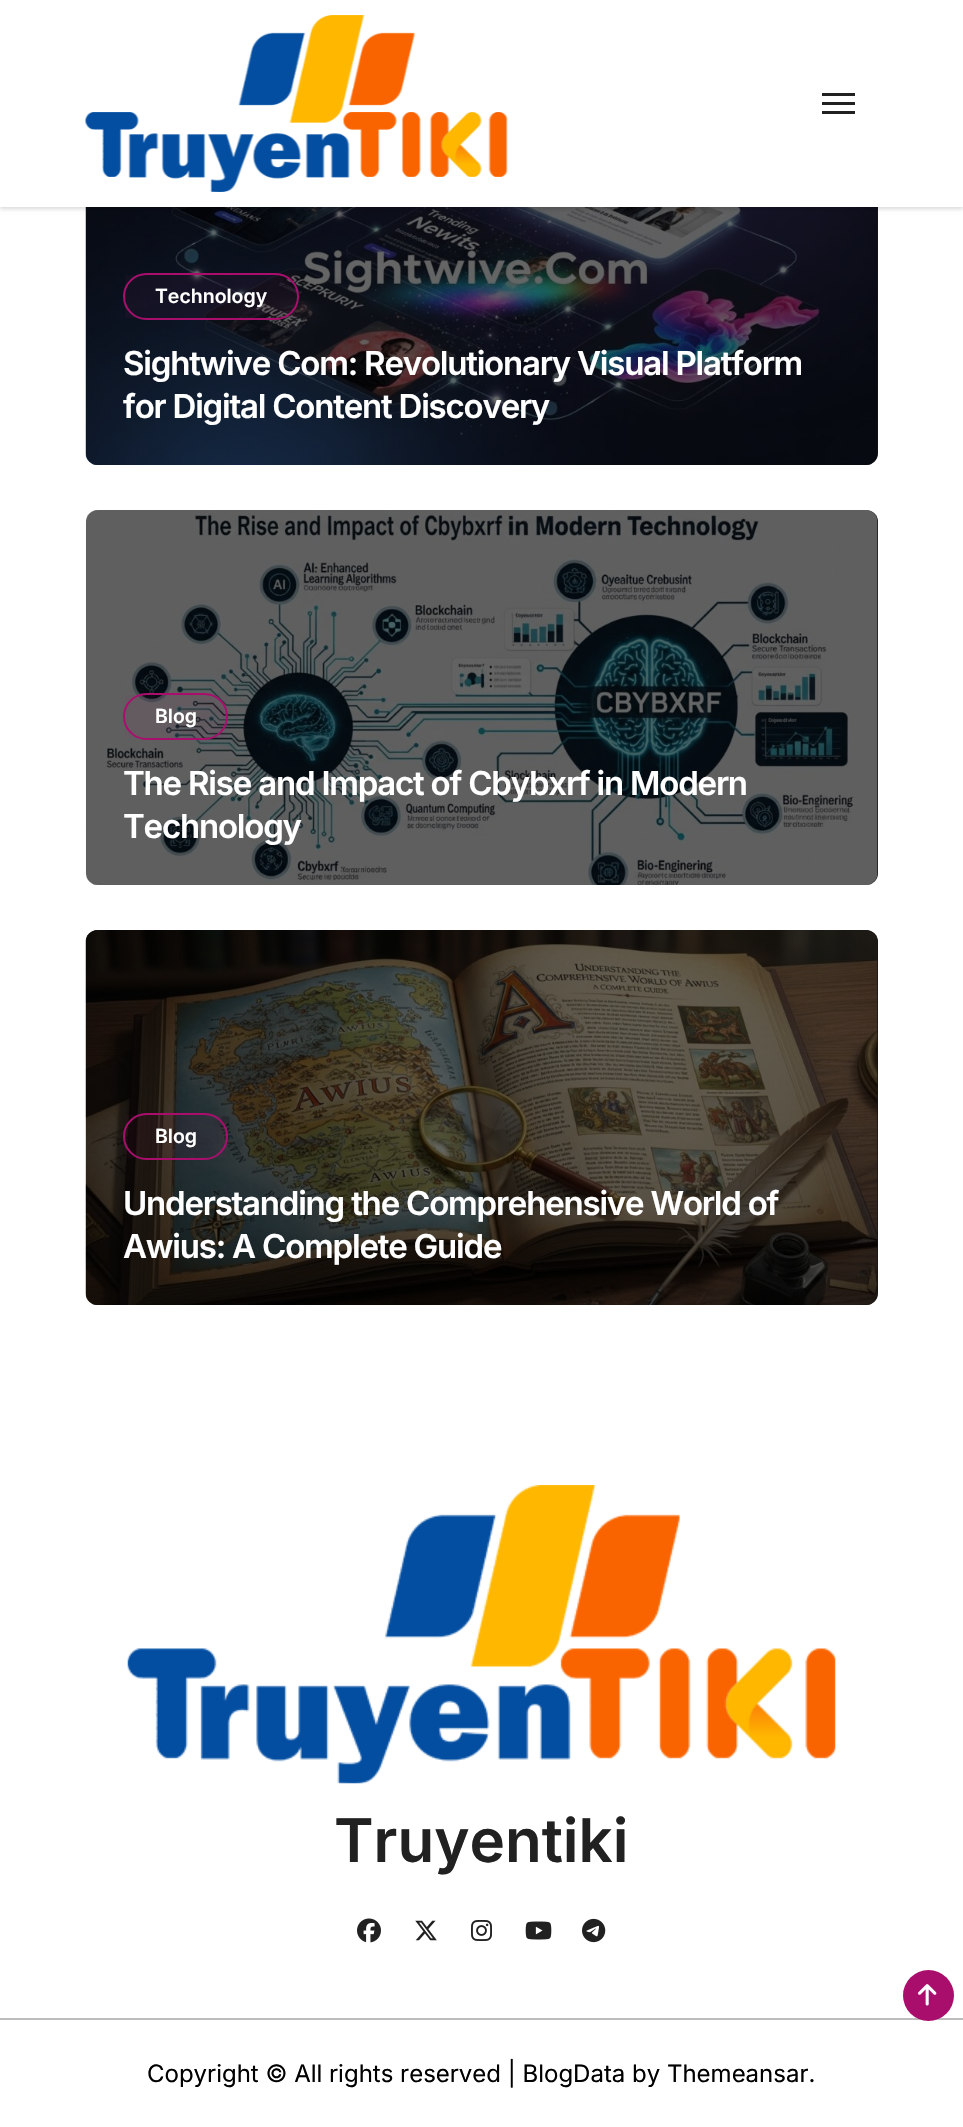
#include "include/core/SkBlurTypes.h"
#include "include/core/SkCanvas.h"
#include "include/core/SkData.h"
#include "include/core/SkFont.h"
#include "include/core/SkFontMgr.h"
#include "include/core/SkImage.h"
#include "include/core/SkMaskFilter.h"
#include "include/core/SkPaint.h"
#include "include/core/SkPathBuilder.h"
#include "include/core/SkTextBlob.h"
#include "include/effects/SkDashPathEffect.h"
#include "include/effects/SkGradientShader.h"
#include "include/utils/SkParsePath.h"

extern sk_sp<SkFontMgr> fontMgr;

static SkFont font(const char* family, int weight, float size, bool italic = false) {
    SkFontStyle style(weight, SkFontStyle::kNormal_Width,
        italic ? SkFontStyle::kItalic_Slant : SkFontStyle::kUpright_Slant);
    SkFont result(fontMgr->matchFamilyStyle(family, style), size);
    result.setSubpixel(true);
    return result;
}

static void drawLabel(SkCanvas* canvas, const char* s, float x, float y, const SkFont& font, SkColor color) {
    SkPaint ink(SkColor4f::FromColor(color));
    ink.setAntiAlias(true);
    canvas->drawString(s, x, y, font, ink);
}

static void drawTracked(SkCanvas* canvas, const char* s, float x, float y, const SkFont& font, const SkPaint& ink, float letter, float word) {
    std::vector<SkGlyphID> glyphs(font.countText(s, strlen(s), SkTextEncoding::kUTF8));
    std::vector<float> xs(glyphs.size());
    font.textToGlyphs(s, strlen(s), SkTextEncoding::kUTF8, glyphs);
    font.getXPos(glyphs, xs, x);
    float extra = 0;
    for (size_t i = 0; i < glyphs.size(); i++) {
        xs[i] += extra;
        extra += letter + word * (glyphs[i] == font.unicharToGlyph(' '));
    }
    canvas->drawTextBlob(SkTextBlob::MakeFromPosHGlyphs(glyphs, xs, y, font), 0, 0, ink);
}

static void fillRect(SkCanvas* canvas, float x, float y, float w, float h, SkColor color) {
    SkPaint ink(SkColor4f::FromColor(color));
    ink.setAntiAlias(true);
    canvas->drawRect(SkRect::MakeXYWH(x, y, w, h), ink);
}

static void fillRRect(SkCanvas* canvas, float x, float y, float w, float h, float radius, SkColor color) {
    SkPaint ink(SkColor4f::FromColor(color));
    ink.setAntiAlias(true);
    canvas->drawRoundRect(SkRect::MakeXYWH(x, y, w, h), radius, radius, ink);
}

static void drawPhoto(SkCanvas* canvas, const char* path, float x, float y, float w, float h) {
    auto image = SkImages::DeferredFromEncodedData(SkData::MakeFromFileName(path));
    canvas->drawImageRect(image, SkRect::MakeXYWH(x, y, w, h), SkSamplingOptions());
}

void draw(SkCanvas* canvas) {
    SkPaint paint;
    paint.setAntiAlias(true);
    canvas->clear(0xFFFFFFFF);
    fillRRect(canvas, 86, 90, 792, 375, 12, 0xFF333333);
    drawPhoto(canvas, "assets/img2.png", 85, 207, 793, 258);
    fillRRect(canvas, 86, 90, 792, 375, 12, 0x99000000);
    paint.setColor(0x26000000);
    paint.setMaskFilter(SkMaskFilter::MakeBlur(kNormal_SkBlurStyle, 2));
    canvas->drawRect(SkRect::MakeXYWH(0, 2, 963, 207), paint);
    paint.setMaskFilter(nullptr);
    fillRect(canvas, 0, 0, 963, 207, 0xFFFFFFFF);
    drawPhoto(canvas, "assets/img1.png", 85, 15, 423, 177);
    fillRect(canvas, 822, 93, 33, 3, 0xFF212121);
    fillRect(canvas, 822, 102, 33, 3, 0xFF212121);
    fillRect(canvas, 822, 111, 33, 3, 0xFF212121);
    paint.setStroke(true);
    paint.setStrokeWidth(2);
    paint.setColor(0xFFA90E6D);
    canvas->drawRoundRect(SkRect::MakeXYWH(124, 274, 174, 45), 22.5f, 22.5f, paint);
    fillRect(canvas, 125, 275, 172, 43, 0x0DA90E6D);
    SkFont font1 = font("Inter", 600, 19.5f);
    drawLabel(canvas, "Technology", 155, 303, font1, 0xFFFFFFFF);
    SkFont font2 = font("Inter", 600, 33);
    paint.setStroke(false);
    paint.setColor(0xFFFFFFFF);
    drawTracked(canvas, "Sightwive Com: Revolutionary Visual Platform", 123, 375, font2, paint, -1.2f, 0);
    drawTracked(canvas, "for Digital Content Discovery", 123, 418, font2, paint, -1.2f, 0);
    fillRRect(canvas, 86, 510, 792, 375, 12, 0xFF333333);
    drawPhoto(canvas, "assets/img3.png", 85, 510, 793, 375);
    fillRRect(canvas, 86, 510, 792, 375, 12, 0x99000000);
    paint.setStroke(true);
    paint.setColor(0xFFA90E6D);
    canvas->drawRoundRect(SkRect::MakeXYWH(124, 694, 103, 45), 22.5f, 22.5f, paint);
    fillRect(canvas, 125, 695, 102, 43, 0x0DA90E6D);
    drawLabel(canvas, "Blog", 155, 723, font1, 0xFFFFFFFF);
    paint.setStroke(false);
    paint.setColor(0xFFFFFFFF);
    drawTracked(canvas, "The Rise and Impact of Cbybxrf in Modern", 123, 795, font2, paint, -1.2f, 0);
    drawTracked(canvas, "Technology", 123, 838, font2, paint, -1.2f, 0);
    fillRRect(canvas, 86, 930, 792, 375, 12, 0xFF333333);
    drawPhoto(canvas, "assets/img4.png", 85, 930, 793, 375);
    fillRRect(canvas, 86, 930, 792, 375, 12, 0x99000000);
    paint.setStroke(true);
    paint.setColor(0xFFA90E6D);
    canvas->drawRoundRect(SkRect::MakeXYWH(124, 1114, 103, 45), 22.5f, 22.5f, paint);
    fillRect(canvas, 125, 1115, 102, 43, 0x0DA90E6D);
    drawLabel(canvas, "Blog", 155, 1143, font1, 0xFFFFFFFF);
    paint.setStroke(false);
    paint.setColor(0xFFFFFFFF);
    drawTracked(canvas, "Understanding the Comprehensive World of", 123, 1215, font2, paint, -1.2f, 0);
    drawTracked(canvas, "Awius: A Complete Guide", 123, 1258, font2, paint, -1.2f, 0);
    drawPhoto(canvas, "assets/img5.png", 127, 1485, 709, 299);
    SkFont font3 = font("Inter", 600, 60);
    drawLabel(canvas, "Truyentiki", 334, 1862, font3, 0xFF212121);
    drawPhoto(canvas, "assets/img6.png", 357, 1918, 24, 25);
    drawPhoto(canvas, "assets/img7.png", 415, 1920, 22, 21);
    drawPhoto(canvas, "assets/img8.png", 471, 1920, 21, 21);
    drawPhoto(canvas, "assets/img9.png", 525, 1921, 27, 19);
    drawPhoto(canvas, "assets/img10.png", 582, 1918, 24, 25);
    fillRect(canvas, 0, 2018, 963, 2, 0xFFBDBDBD);
    SkFont font4 = font("Inter", 400, 24);
    drawLabel(canvas, "Copyright © All rights reserved | BlogData by Themeansar.", 147, 2082, font4, 0xFF000000);
    paint.setColor(0xFFA90E6D);
    canvas->drawCircle(928.5f, 1995.5f, 25.5f, paint);
    drawPhoto(canvas, "assets/img11.png", 918, 1984, 19, 22);
}
